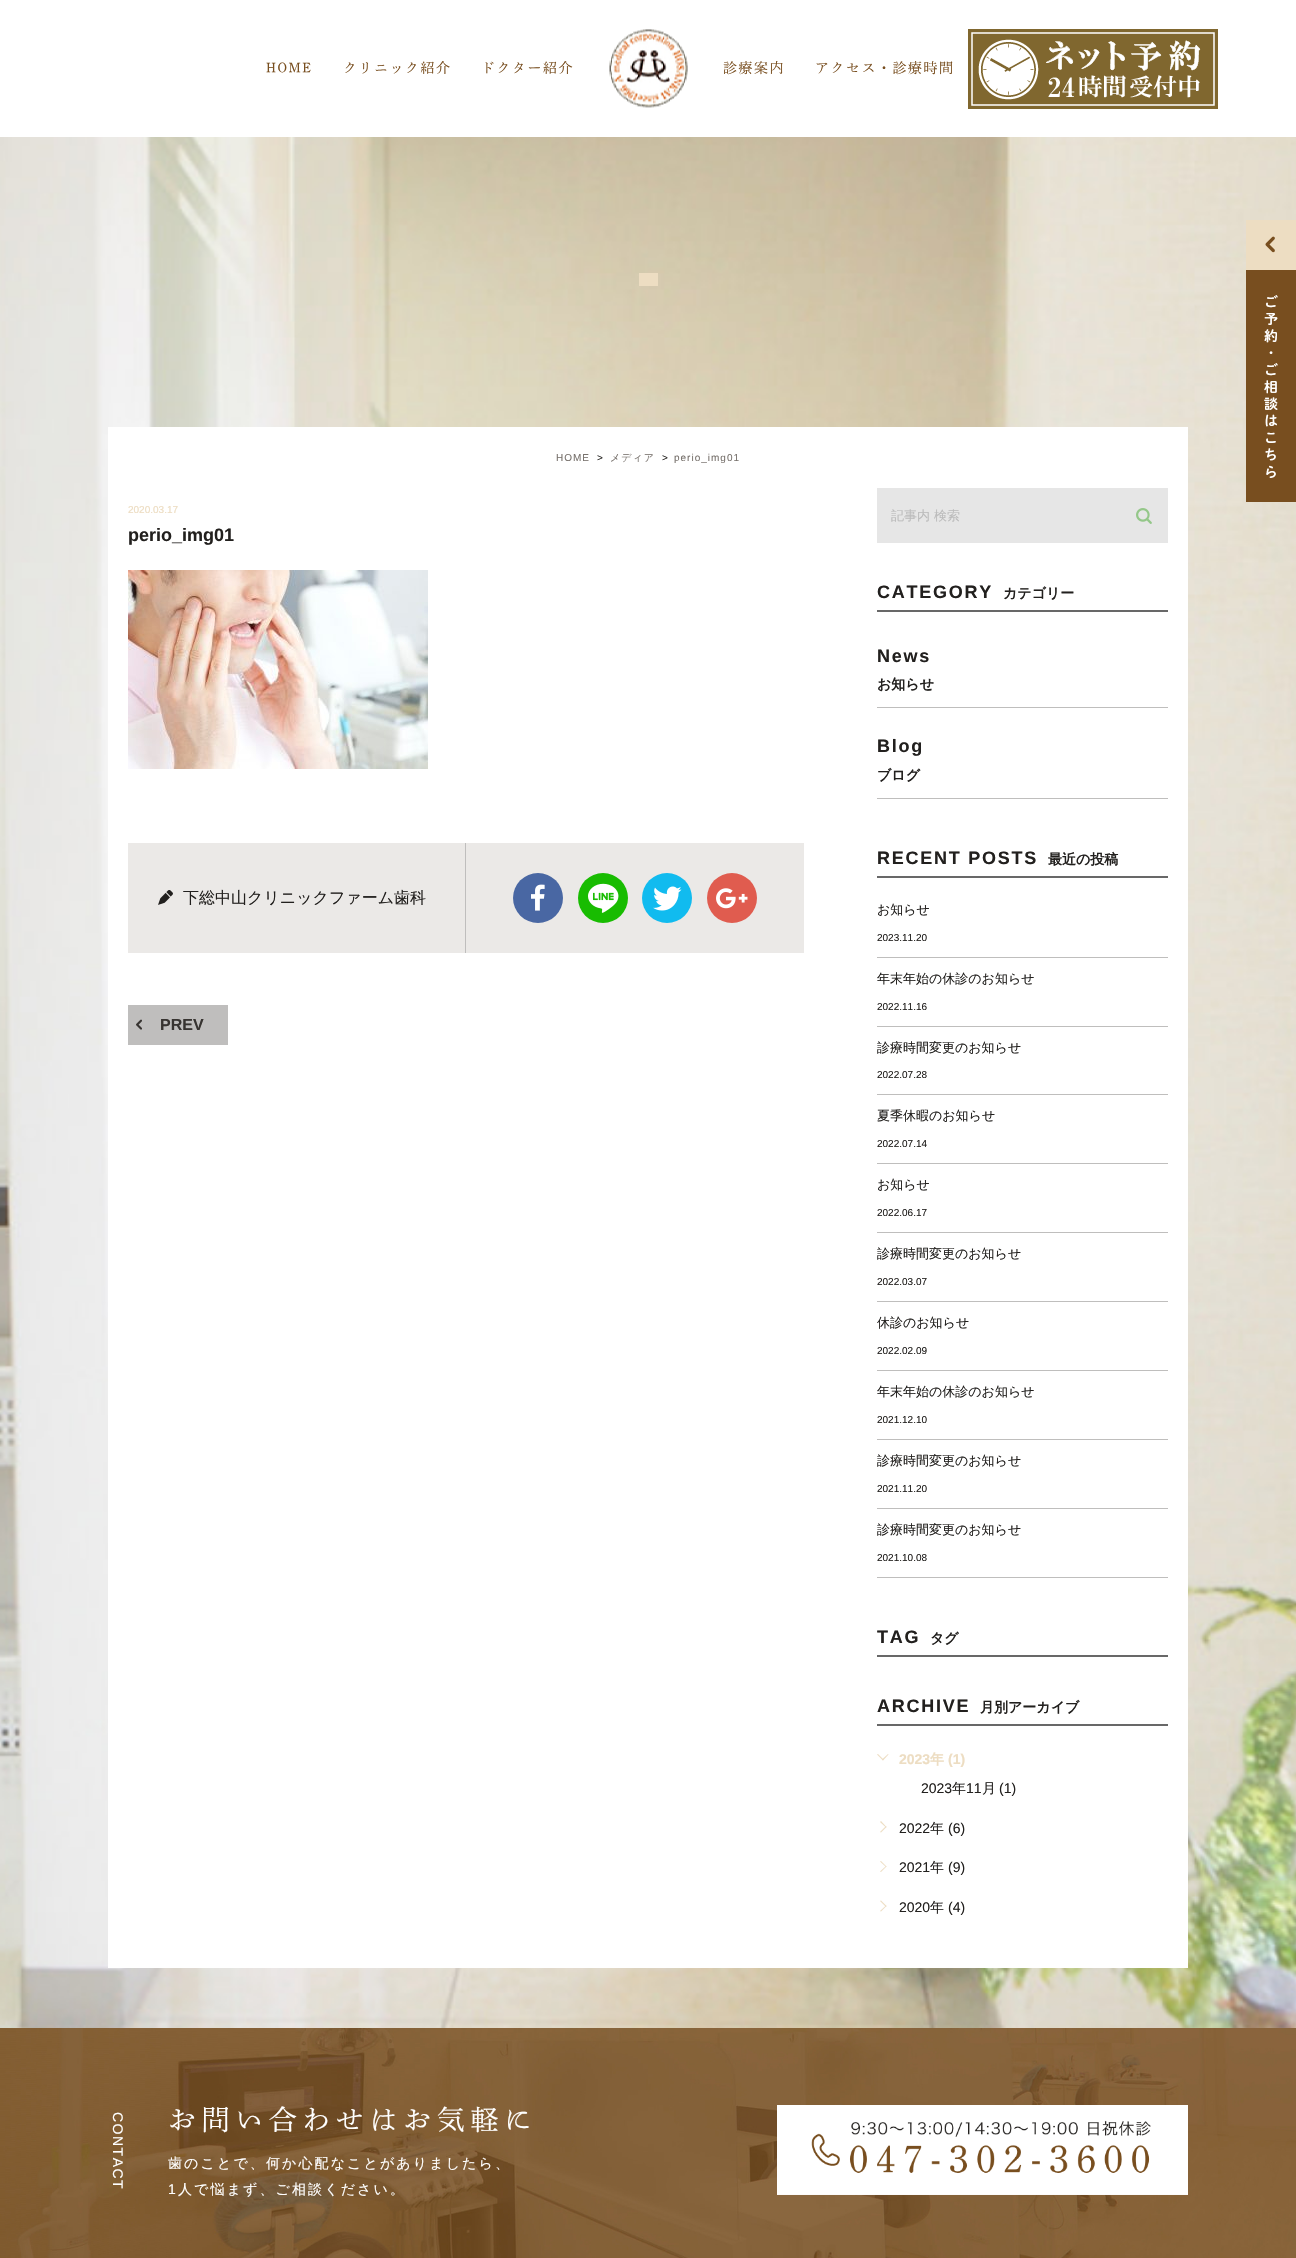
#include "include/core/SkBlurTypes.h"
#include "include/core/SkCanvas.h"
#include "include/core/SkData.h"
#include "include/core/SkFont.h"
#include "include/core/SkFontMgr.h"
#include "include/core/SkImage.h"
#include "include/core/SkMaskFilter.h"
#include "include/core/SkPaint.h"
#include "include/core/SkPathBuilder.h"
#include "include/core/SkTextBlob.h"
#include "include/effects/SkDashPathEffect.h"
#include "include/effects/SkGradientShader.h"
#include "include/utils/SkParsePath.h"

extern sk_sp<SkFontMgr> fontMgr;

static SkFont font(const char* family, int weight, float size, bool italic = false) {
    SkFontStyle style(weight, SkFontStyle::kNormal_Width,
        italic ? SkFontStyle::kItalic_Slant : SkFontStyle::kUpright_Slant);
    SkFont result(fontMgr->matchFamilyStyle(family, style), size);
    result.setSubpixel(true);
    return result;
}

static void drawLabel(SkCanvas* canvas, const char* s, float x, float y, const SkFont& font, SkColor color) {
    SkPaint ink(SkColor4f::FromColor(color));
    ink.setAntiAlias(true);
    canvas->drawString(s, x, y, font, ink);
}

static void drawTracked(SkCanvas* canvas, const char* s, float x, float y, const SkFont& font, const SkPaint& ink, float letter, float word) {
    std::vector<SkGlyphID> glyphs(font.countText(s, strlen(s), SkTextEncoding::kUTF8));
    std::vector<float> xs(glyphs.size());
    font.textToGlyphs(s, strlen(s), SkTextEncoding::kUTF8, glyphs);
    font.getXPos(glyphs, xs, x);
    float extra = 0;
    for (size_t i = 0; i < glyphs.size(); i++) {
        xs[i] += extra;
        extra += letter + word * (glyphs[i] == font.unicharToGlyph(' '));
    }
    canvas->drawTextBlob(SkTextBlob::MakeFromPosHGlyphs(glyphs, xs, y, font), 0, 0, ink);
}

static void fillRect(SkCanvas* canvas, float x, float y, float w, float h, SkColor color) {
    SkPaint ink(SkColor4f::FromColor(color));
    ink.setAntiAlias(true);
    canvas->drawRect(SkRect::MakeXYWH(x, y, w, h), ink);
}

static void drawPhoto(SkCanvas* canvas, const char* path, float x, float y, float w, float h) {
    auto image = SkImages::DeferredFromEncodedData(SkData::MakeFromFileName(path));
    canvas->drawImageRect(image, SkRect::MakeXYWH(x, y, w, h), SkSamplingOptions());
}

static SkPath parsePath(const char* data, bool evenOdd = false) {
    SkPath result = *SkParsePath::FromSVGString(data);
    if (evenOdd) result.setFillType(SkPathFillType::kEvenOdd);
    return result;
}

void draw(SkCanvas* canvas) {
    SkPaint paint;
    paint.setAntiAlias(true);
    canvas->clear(0xFFFFFFFF);
    SkFont font1 = font("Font", 400, 14);
    paint.setColor(0xFF784E1F);
    drawTracked(canvas, "HOME", 266, 73, font1, paint, 1.5f, 0);
    drawTracked(canvas, "クリニック紹介", 343, 73, font1, paint, 1.5f, 0);
    drawTracked(canvas, "ドクター紹介", 481, 73, font1, paint, 1.5f, 0);
    drawPhoto(canvas, "assets/img1.png", 609, 29, 79, 79);
    drawTracked(canvas, "診療案内", 723, 73, font1, paint, 1.5f, 0);
    drawTracked(canvas, "アクセス・診療時間", 815, 73, font1, paint, 1.5f, 0);
    drawPhoto(canvas, "assets/img2.png", 968, 29, 250, 80);
    drawPhoto(canvas, "assets/img3.png", 0, 137, 1296, 1891);
    fillRect(canvas, 639, 273, 19, 13, 0xFFEDDDC2);
    fillRect(canvas, 108, 427, 1080, 1541, 0xFFFFFFFF);
    SkFont font2 = font("Liberation Sans", 400, 10);
    paint.setColor(0xFF77716C);
    drawTracked(canvas, "HOME", 556, 461, font2, paint, 1, 0);
    paint.setColor(0xFF22201E);
    drawTracked(canvas, ">", 597, 461, font2, paint, 1, 0);
    SkFont font3 = font("WenQuanYi Zen Hei", 500, 10);
    paint.setColor(0xFF77716C);
    drawTracked(canvas, "メディア", 610, 461, font3, paint, 1, 0);
    paint.setColor(0xFF22201E);
    drawTracked(canvas, ">", 662, 461, font2, paint, 1, 0);
    paint.setColor(0xFF77716C);
    drawTracked(canvas, "perio_img01", 674, 461, font2, paint, 1, 0);
    drawLabel(canvas, "2020.03.17", 128, 513, font2, 0xFFEDDDC2);
    SkFont font4 = font("Liberation Sans", 700, 18);
    drawLabel(canvas, "perio_img01", 128, 541, font4, 0xFF22201E);
    drawPhoto(canvas, "assets/img4.png", 128, 570, 300, 199);
    fillRect(canvas, 128, 843, 676, 110, 0xFFEBE9E7);
    fillRect(canvas, 465, 843, 1, 110, 0xFFBFBEBD);
    drawPhoto(canvas, "assets/img5.png", 158, 890, 15, 15);
    SkFont font5 = font("WenQuanYi Zen Hei", 500, 16);
    drawLabel(canvas, "下総中山クリニックファーム歯科", 183, 903, font5, 0xFF22201E);
    paint.setColor(0xFF4967A3);
    canvas->drawCircle(538, 898, 25, paint);
    drawPhoto(canvas, "assets/img6.png", 531, 884, 14, 27);
    paint.setColor(0xFF18BC01);
    canvas->drawCircle(603, 898, 25, paint);
    drawPhoto(canvas, "assets/img7.png", 588, 883, 31, 30);
    paint.setColor(0xFF11BBEF);
    canvas->drawCircle(667, 898, 25, paint);
    drawPhoto(canvas, "assets/img8.png", 653, 886, 29, 25);
    paint.setColor(0xFFE05C4F);
    canvas->drawCircle(732, 898, 25, paint);
    drawPhoto(canvas, "assets/img9.png", 716, 888, 32, 21);
    fillRect(canvas, 128, 1005, 100, 40, 0xFFBFBEBD);
    drawPhoto(canvas, "assets/img10.png", 136, 1019, 6, 11);
    SkFont font6 = font("Liberation Sans", 700, 16);
    drawLabel(canvas, "PREV", 160, 1030, font6, 0xFF373431);
    fillRect(canvas, 877, 488, 291, 55, 0xFFE6E6E6);
    SkFont font7 = font("WenQuanYi Zen Hei", 500, 13);
    drawLabel(canvas, "記事内 検索", 891, 520, font7, 0xFFBBBBBB);
    drawPhoto(canvas, "assets/img11.png", 1136, 508, 16, 16);
    fillRect(canvas, 877, 610, 291, 2, 0xFF686868);
    paint.setColor(0xFF22201E);
    drawTracked(canvas, "CATEGORY", 877, 598, font4, paint, 1.75f, 0);
    SkFont font8 = font("WenQuanYi Zen Hei", 700, 14);
    drawLabel(canvas, "カテゴリー", 1003, 598, font8, 0xFF22201E);
    fillRect(canvas, 877, 707, 291, 1, 0xFFBFBEBD);
    drawTracked(canvas, "News", 877, 662, font4, paint, 1.75f, 0);
    drawLabel(canvas, "お知らせ", 877, 689, font8, 0xFF22201E);
    fillRect(canvas, 877, 798, 291, 1, 0xFFBFBEBD);
    drawTracked(canvas, "Blog", 877, 752, font4, paint, 1.75f, 0);
    drawLabel(canvas, "ブログ", 877, 780, font8, 0xFF22201E);
    fillRect(canvas, 877, 876, 291, 2, 0xFF686868);
    drawTracked(canvas, "RECENT POSTS", 877, 864, font4, paint, 1.75f, 0);
    drawLabel(canvas, "最近の投稿", 1048, 864, font8, 0xFF22201E);
    fillRect(canvas, 877, 957, 291, 1, 0xFFBFBEBD);
    drawLabel(canvas, "お知らせ", 877, 914, font7, 0xFF22201E);
    drawLabel(canvas, "2023.11.20", 877, 941, font2, 0xFF22201E);
    fillRect(canvas, 877, 1026, 291, 1, 0xFFBFBEBD);
    drawLabel(canvas, "年末年始の休診のお知らせ", 877, 983, font7, 0xFF22201E);
    drawLabel(canvas, "2022.11.16", 877, 1010, font2, 0xFF22201E);
    fillRect(canvas, 877, 1094, 291, 1, 0xFFBFBEBD);
    drawLabel(canvas, "診療時間変更のお知らせ", 877, 1052, font7, 0xFF22201E);
    drawLabel(canvas, "2022.07.28", 877, 1078, font2, 0xFF22201E);
    fillRect(canvas, 877, 1163, 291, 1, 0xFFBFBEBD);
    drawLabel(canvas, "夏季休暇のお知らせ", 877, 1120, font7, 0xFF22201E);
    drawLabel(canvas, "2022.07.14", 877, 1147, font2, 0xFF22201E);
    fillRect(canvas, 877, 1232, 291, 1, 0xFFBFBEBD);
    drawLabel(canvas, "お知らせ", 877, 1189, font7, 0xFF22201E);
    drawLabel(canvas, "2022.06.17", 877, 1216, font2, 0xFF22201E);
    fillRect(canvas, 877, 1301, 291, 1, 0xFFBFBEBD);
    drawLabel(canvas, "診療時間変更のお知らせ", 877, 1258, font7, 0xFF22201E);
    drawLabel(canvas, "2022.03.07", 877, 1285, font2, 0xFF22201E);
    fillRect(canvas, 877, 1370, 291, 1, 0xFFBFBEBD);
    drawLabel(canvas, "休診のお知らせ", 877, 1327, font7, 0xFF22201E);
    drawLabel(canvas, "2022.02.09", 877, 1354, font2, 0xFF22201E);
    fillRect(canvas, 877, 1439, 291, 1, 0xFFBFBEBD);
    drawLabel(canvas, "年末年始の休診のお知らせ", 877, 1396, font7, 0xFF22201E);
    drawLabel(canvas, "2021.12.10", 877, 1423, font2, 0xFF22201E);
    fillRect(canvas, 877, 1508, 291, 1, 0xFFBFBEBD);
    drawLabel(canvas, "診療時間変更のお知らせ", 877, 1465, font7, 0xFF22201E);
    drawLabel(canvas, "2021.11.20", 877, 1492, font2, 0xFF22201E);
    fillRect(canvas, 877, 1577, 291, 1, 0xFFBFBEBD);
    drawLabel(canvas, "診療時間変更のお知らせ", 877, 1534, font7, 0xFF22201E);
    drawLabel(canvas, "2021.10.08", 877, 1561, font2, 0xFF22201E);
    fillRect(canvas, 877, 1655, 291, 2, 0xFF686868);
    drawTracked(canvas, "TAG", 877, 1643, font4, paint, 1.75f, 0);
    drawLabel(canvas, "タグ", 930, 1643, font8, 0xFF22201E);
    fillRect(canvas, 877, 1724, 291, 2, 0xFF686868);
    drawTracked(canvas, "ARCHIVE", 877, 1712, font4, paint, 1.75f, 0);
    drawLabel(canvas, "月別アーカイブ", 980, 1712, font8, 0xFF22201E);
    paint.setColor(0xFFEDDDC2);
    canvas->drawPath(parsePath("M888 1754L888.5 1754.5L883 1760.5L882 1759.5Z"), paint);
    canvas->drawPath(parsePath("M878 1754L883.5 1759.5L883 1760.5L877 1754.5Z"), paint);
    SkFont font9 = font("Liberation Sans", 700, 14);
    drawLabel(canvas, "2023", 899, 1764, font9, 0xFFEDDDC2);
    drawLabel(canvas, "年", 930, 1764, font8, 0xFFEDDDC2);
    drawLabel(canvas, "(1)", 948, 1764, font9, 0xFFEDDDC2);
    SkFont font10 = font("Liberation Sans", 400, 14);
    drawLabel(canvas, "2023", 921, 1793, font10, 0xFF22201E);
    SkFont font11 = font("WenQuanYi Zen Hei", 500, 14);
    drawLabel(canvas, "年", 952, 1793, font11, 0xFF22201E);
    drawLabel(canvas, "11", 966, 1793, font10, 0xFF22201E);
    drawLabel(canvas, "月", 982, 1793, font11, 0xFF22201E);
    drawLabel(canvas, "(1)", 999, 1793, font10, 0xFF22201E);
    canvas->drawPath(parsePath("M880 1822L881 1821L886.5 1827L886 1827.5Z"), paint);
    canvas->drawPath(parsePath("M880 1832L886 1826L886.5 1827L881 1832.5Z"), paint);
    drawLabel(canvas, "2022", 899, 1833, font10, 0xFF22201E);
    drawLabel(canvas, "年", 930, 1833, font11, 0xFF22201E);
    drawLabel(canvas, "(6)", 948, 1833, font10, 0xFF22201E);
    canvas->drawPath(parsePath("M880 1861.5L881 1861L886.5 1866.5L886 1867Z"), paint);
    canvas->drawPath(parsePath("M880 1871.5L886 1866L886.5 1866.5L881 1872Z"), paint);
    drawLabel(canvas, "2021", 899, 1872, font10, 0xFF22201E);
    drawLabel(canvas, "年", 930, 1872, font11, 0xFF22201E);
    drawLabel(canvas, "(9)", 948, 1872, font10, 0xFF22201E);
    canvas->drawPath(parsePath("M880 1901L881 1900.5L886.5 1906L886 1907Z"), paint);
    canvas->drawPath(parsePath("M880 1911L886 1905.5L886.5 1906L881 1911.5Z"), paint);
    drawLabel(canvas, "2020", 899, 1912, font10, 0xFF22201E);
    drawLabel(canvas, "年", 930, 1912, font11, 0xFF22201E);
    drawLabel(canvas, "(4)", 948, 1912, font10, 0xFF22201E);
    drawPhoto(canvas, "assets/img12.png", 1246, 220, 50, 282);
    drawPhoto(canvas, "assets/img13.png", 0, 2028, 1296, 230);
    paint.setColor(0xFFFFFFFF);
    canvas->save();
    canvas->rotate(90, 113, 2112);
    drawTracked(canvas, "CONTACT", 113, 2112, font10, paint, 1.5f, 0);
    canvas->restore();
    SkFont font12 = font("Font", 400, 28);
    drawTracked(canvas, "お問い合わせはお気軽に", 168, 2130, font12, paint, 5.6f, 0);
    drawTracked(canvas, "歯のことで、何か心配なことがありましたら、", 168, 2168, font11, paint, 2.1f, 0);
    drawTracked(canvas, "1", 168, 2194, font10, paint, 2.1f, 0);
    drawTracked(canvas, "人で悩まず、ご相談ください。", 178, 2194, font11, paint, 2.1f, 0);
    drawPhoto(canvas, "assets/img14.png", 777, 2105, 411, 90);
}
